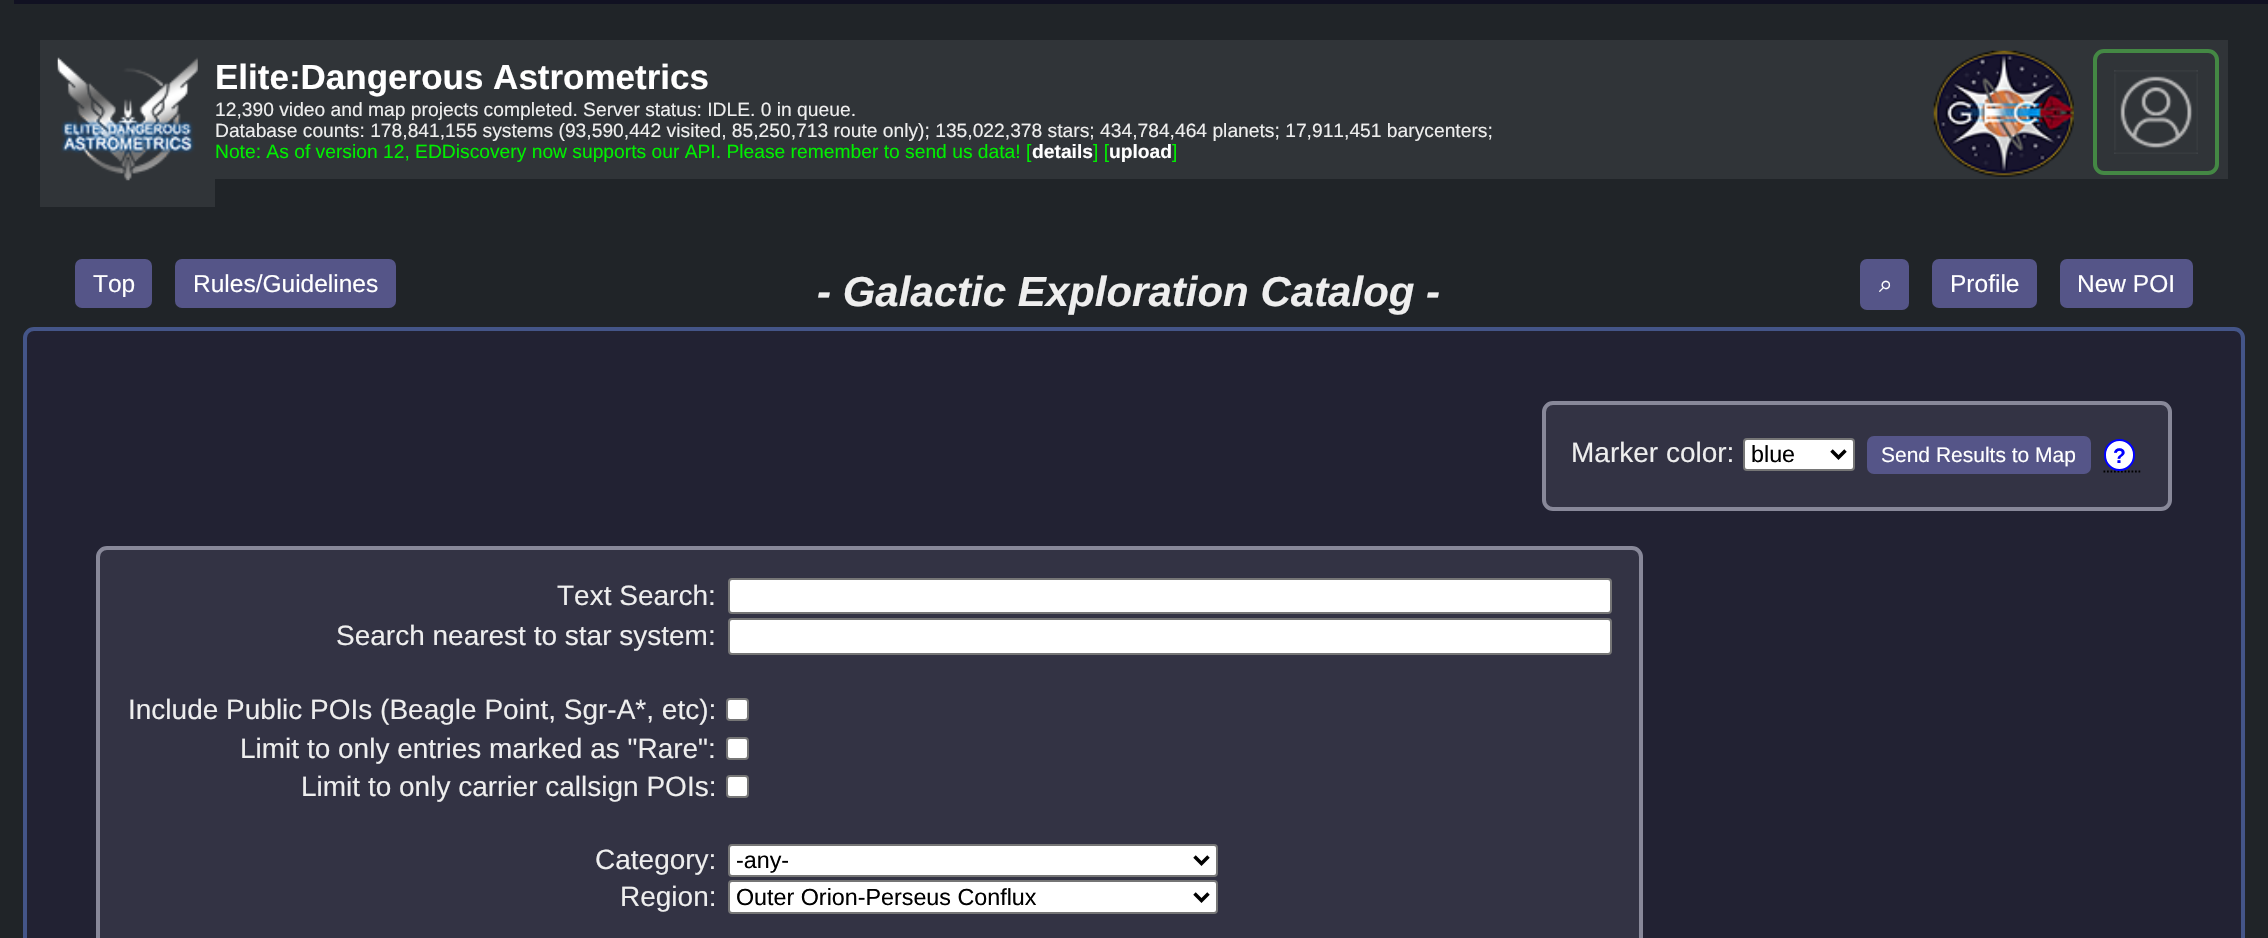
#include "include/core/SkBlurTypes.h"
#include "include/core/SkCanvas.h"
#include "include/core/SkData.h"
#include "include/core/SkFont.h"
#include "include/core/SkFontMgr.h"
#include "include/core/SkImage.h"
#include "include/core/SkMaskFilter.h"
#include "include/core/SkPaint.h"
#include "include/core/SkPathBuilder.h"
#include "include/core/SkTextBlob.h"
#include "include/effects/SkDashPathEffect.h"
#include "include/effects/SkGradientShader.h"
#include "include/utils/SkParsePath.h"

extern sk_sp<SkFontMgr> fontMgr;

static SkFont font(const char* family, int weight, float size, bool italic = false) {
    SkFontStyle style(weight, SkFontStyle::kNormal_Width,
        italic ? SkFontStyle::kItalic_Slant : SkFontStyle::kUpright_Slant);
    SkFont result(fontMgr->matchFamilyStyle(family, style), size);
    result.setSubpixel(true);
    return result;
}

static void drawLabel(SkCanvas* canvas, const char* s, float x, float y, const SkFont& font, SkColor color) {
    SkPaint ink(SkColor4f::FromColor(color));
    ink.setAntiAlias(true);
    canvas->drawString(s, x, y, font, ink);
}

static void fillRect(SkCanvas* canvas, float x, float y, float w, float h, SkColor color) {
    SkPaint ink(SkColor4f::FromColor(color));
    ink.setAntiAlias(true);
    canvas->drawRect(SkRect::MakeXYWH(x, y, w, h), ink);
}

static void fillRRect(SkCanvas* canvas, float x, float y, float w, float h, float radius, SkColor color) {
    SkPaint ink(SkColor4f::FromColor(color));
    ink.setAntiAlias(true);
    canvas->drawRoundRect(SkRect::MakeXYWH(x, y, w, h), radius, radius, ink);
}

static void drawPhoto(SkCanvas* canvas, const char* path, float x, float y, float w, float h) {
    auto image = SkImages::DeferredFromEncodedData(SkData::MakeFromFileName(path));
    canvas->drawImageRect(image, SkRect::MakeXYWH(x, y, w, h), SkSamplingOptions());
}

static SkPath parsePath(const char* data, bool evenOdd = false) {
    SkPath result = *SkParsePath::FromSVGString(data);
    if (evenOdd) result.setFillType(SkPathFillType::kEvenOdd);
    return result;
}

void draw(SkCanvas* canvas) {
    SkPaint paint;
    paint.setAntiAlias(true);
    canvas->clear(0xFF202428);
    fillRect(canvas, 14, 0, 2254, 4, 0xFF111122);
    fillRect(canvas, 215, 40, 2013, 139, 0xFF303438);
    fillRect(canvas, 40, 40, 175, 167, 0xFF303438);
    drawPhoto(canvas, "assets/img1.png", 57, 57, 141, 124);
    SkFont font1 = font("Liberation Sans", 700, 35);
    drawLabel(canvas, "Elite:Dangerous Astrometrics", 215, 89, font1, 0xFFFFFFFF);
    SkFont font2 = font("Liberation Sans", 400, 19.25f);
    drawLabel(canvas, "12,390 video and map projects completed. Server status: IDLE. 0 in queue.", 215, 116, font2, 0xFFEEEEEE);
    drawLabel(canvas, "Database counts: 178,841,155 systems (93,590,442 visited, 85,250,713 route only); 135,022,378 stars; 434,784,464 planets; 17,911,451 barycenters;", 215, 137, font2, 0xFFEEEEEE);
    drawLabel(canvas, "Note: As of version 12, EDDiscovery now supports our API. Please remember to send us data! [", 215, 158, font2, 0xFF00EE00);
    SkFont font3 = font("Liberation Sans", 700, 19.25f);
    drawLabel(canvas, "details", 1032, 158, font3, 0xFFFFFFFF);
    drawLabel(canvas, "] [", 1093, 158, font2, 0xFF00EE00);
    drawLabel(canvas, "upload", 1109, 158, font3, 0xFFFFFFFF);
    drawLabel(canvas, "]", 1172, 158, font2, 0xFF00EE00);
    drawPhoto(canvas, "assets/img2.png", 1933, 50, 141, 127);
    paint.setStroke(true);
    paint.setStrokeWidth(4);
    paint.setColor(0xFF448844);
    canvas->drawRoundRect(SkRect::MakeXYWH(2095, 51, 122, 122), 9, 9, paint);
    drawPhoto(canvas, "assets/img3.png", 2114, 70, 84, 84);
    fillRRect(canvas, 75, 259, 77, 49, 7, 0xFF555588);
    SkFont font4 = font("Liberation Sans", 400, 24.5f);
    drawLabel(canvas, "Top", 93, 292, font4, 0xFFFFFFFF);
    fillRRect(canvas, 175, 259, 221, 49, 7, 0xFF555588);
    drawLabel(canvas, "Rules/Guidelines", 193, 292, font4, 0xFFFFFFFF);
    fillRRect(canvas, 1860, 259, 49, 51, 7, 0xFF555588);
    SkFont font5 = font("FreeSerif", 400, 24.5f);
    drawLabel(canvas, "⌕", 1879, 292, font5, 0xFFFFFFFF);
    fillRRect(canvas, 1932, 259, 105, 49, 7, 0xFF555588);
    drawLabel(canvas, "Profile", 1950, 292, font4, 0xFFFFFFFF);
    fillRRect(canvas, 2060, 259, 133, 49, 7, 0xFF555588);
    drawLabel(canvas, "New POI", 2077, 292, font4, 0xFFFFFFFF);
    SkFont font6 = font("Liberation Sans", 700, 42, true);
    drawLabel(canvas, "- Galactic Exploration Catalog -", 817, 306, font6, 0xFFEEEEEE);
    paint.setStroke(false);
    paint.setColor(0xFF222233);
    canvas->drawRoundRect(SkRect::MakeXYWH(25, 329, 2218, 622), 9, 9, paint);
    paint.setStroke(true);
    paint.setColor(0xFF445588);
    canvas->drawRoundRect(SkRect::MakeXYWH(25, 329, 2218, 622), 9, 9, paint);
    paint.setStroke(false);
    paint.setColor(0xFF333344);
    canvas->drawRoundRect(SkRect::MakeXYWH(1544, 403, 626, 106), 9, 9, paint);
    paint.setStroke(true);
    paint.setColor(0xFF888899);
    canvas->drawRoundRect(SkRect::MakeXYWH(1544, 403, 626, 106), 9, 9, paint);
    SkFont font7 = font("Liberation Sans", 400, 28);
    drawLabel(canvas, "Marker color:", 1571, 462, font7, 0xFFEEEEEE);
    paint.setStroke(false);
    paint.setColor(0xFFFFFFFF);
    canvas->drawRoundRect(SkRect::MakeXYWH(1744, 439, 110, 31), 3, 3, paint);
    paint.setStroke(true);
    paint.setStrokeWidth(2);
    paint.setColor(0xFF767676);
    canvas->drawRoundRect(SkRect::MakeXYWH(1744, 439, 110, 31), 3, 3, paint);
    paint.setStrokeWidth(3.5f);
    paint.setColor(0xFF000000);
    canvas->drawPath(parsePath("M1831.5 450.5L1838.5 457.5L1845.5 450.5"), paint);
    SkFont font8 = font("Liberation Sans", 400, 23.3f);
    drawLabel(canvas, "blue", 1751, 462, font8, 0xFF000000);
    fillRRect(canvas, 1867, 436, 224, 38, 7, 0xFF555588);
    SkFont font9 = font("Liberation Sans", 400, 21);
    drawLabel(canvas, "Send Results to Map", 1881, 462, font9, 0xFFFFFFFF);
    paint.setStrokeWidth(1.8f);
    paint.setPathEffect(SkDashPathEffect::Make({{1.75f, 1.75f}}, 0));
    canvas->drawPath(parsePath("M2103.5 471.5H2142"), paint);
    paint.setPathEffect(nullptr);
    paint.setStroke(false);
    paint.setColor(0xFFFFFFFF);
    canvas->drawRoundRect(SkRect::MakeXYWH(2105, 440, 29, 30), 14.5f, 14.5f, paint);
    paint.setStroke(true);
    paint.setStrokeWidth(2);
    paint.setColor(0xFF0000FF);
    canvas->drawRoundRect(SkRect::MakeXYWH(2105, 440, 29, 30), 14.5f, 14.5f, paint);
    SkFont font10 = font("Liberation Sans", 700, 21);
    drawLabel(canvas, "?", 2113, 463, font10, 0xFF0000FF);
    paint.setStroke(false);
    paint.setColor(0xFF333344);
    canvas->drawRoundRect(SkRect::MakeXYWH(98, 548, 1543, 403), 9, 9, paint);
    paint.setStroke(true);
    paint.setStrokeWidth(4);
    paint.setColor(0xFF888899);
    canvas->drawRoundRect(SkRect::MakeXYWH(98, 548, 1543, 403), 9, 9, paint);
    drawLabel(canvas, "Text Search:", 557, 605, font7, 0xFFEEEEEE);
    paint.setStroke(false);
    paint.setColor(0xFFFFFFFF);
    canvas->drawRoundRect(SkRect::MakeXYWH(729, 579, 882, 34), 3, 3, paint);
    paint.setStroke(true);
    paint.setStrokeWidth(2);
    paint.setColor(0xFF767676);
    canvas->drawRoundRect(SkRect::MakeXYWH(729, 579, 882, 34), 3, 3, paint);
    drawLabel(canvas, "Search nearest to star system:", 336, 645, font7, 0xFFEEEEEE);
    paint.setStroke(false);
    paint.setColor(0xFFFFFFFF);
    canvas->drawRoundRect(SkRect::MakeXYWH(729, 619, 882, 35), 3, 3, paint);
    paint.setStroke(true);
    paint.setColor(0xFF767676);
    canvas->drawRoundRect(SkRect::MakeXYWH(729, 619, 882, 35), 3, 3, paint);
    drawLabel(canvas, "Include Public POIs (Beagle Point, Sgr-A*, etc):", 128, 719, font7, 0xFFEEEEEE);
    paint.setStroke(false);
    paint.setColor(0xFFFFFFFF);
    canvas->drawRoundRect(SkRect::MakeXYWH(727, 699, 21, 21), 3, 3, paint);
    paint.setStroke(true);
    paint.setColor(0xFF767676);
    canvas->drawRoundRect(SkRect::MakeXYWH(727, 699, 21, 21), 3, 3, paint);
    drawLabel(canvas, "Limit to only entries marked as \"Rare\":", 240, 758, font7, 0xFFEEEEEE);
    paint.setStroke(false);
    paint.setColor(0xFFFFFFFF);
    canvas->drawRoundRect(SkRect::MakeXYWH(727, 738, 21, 21), 3, 3, paint);
    paint.setStroke(true);
    paint.setColor(0xFF767676);
    canvas->drawRoundRect(SkRect::MakeXYWH(727, 738, 21, 21), 3, 3, paint);
    drawLabel(canvas, "Limit to only carrier callsign POIs:", 301, 796, font7, 0xFFEEEEEE);
    paint.setStroke(false);
    paint.setColor(0xFFFFFFFF);
    canvas->drawRoundRect(SkRect::MakeXYWH(727, 776, 21, 21), 3, 3, paint);
    paint.setStroke(true);
    paint.setColor(0xFF767676);
    canvas->drawRoundRect(SkRect::MakeXYWH(727, 776, 21, 21), 3, 3, paint);
    drawLabel(canvas, "Category:", 595, 869, font7, 0xFFEEEEEE);
    paint.setStroke(false);
    paint.setColor(0xFFFFFFFF);
    canvas->drawRoundRect(SkRect::MakeXYWH(729, 845, 488, 31), 3, 3, paint);
    paint.setStroke(true);
    paint.setColor(0xFF767676);
    canvas->drawRoundRect(SkRect::MakeXYWH(729, 845, 488, 31), 3, 3, paint);
    paint.setStrokeWidth(3.5f);
    paint.setColor(0xFF000000);
    canvas->drawPath(parsePath("M1194.5 856.5L1201.5 863.5L1208.5 856.5"), paint);
    drawLabel(canvas, "-any-", 736, 868, font8, 0xFF000000);
    drawLabel(canvas, "Region:", 620, 906, font7, 0xFFEEEEEE);
    paint.setStroke(false);
    paint.setColor(0xFFFFFFFF);
    canvas->drawRoundRect(SkRect::MakeXYWH(729, 881, 488, 32), 3, 3, paint);
    paint.setStroke(true);
    paint.setStrokeWidth(2);
    paint.setColor(0xFF767676);
    canvas->drawRoundRect(SkRect::MakeXYWH(729, 881, 488, 32), 3, 3, paint);
    paint.setStrokeWidth(3.5f);
    paint.setColor(0xFF000000);
    canvas->drawPath(parsePath("M1194.5 893.5L1201.5 900.5L1208.5 893.5"), paint);
    drawLabel(canvas, "Outer Orion-Perseus Conflux", 736, 905, font8, 0xFF000000);
}
